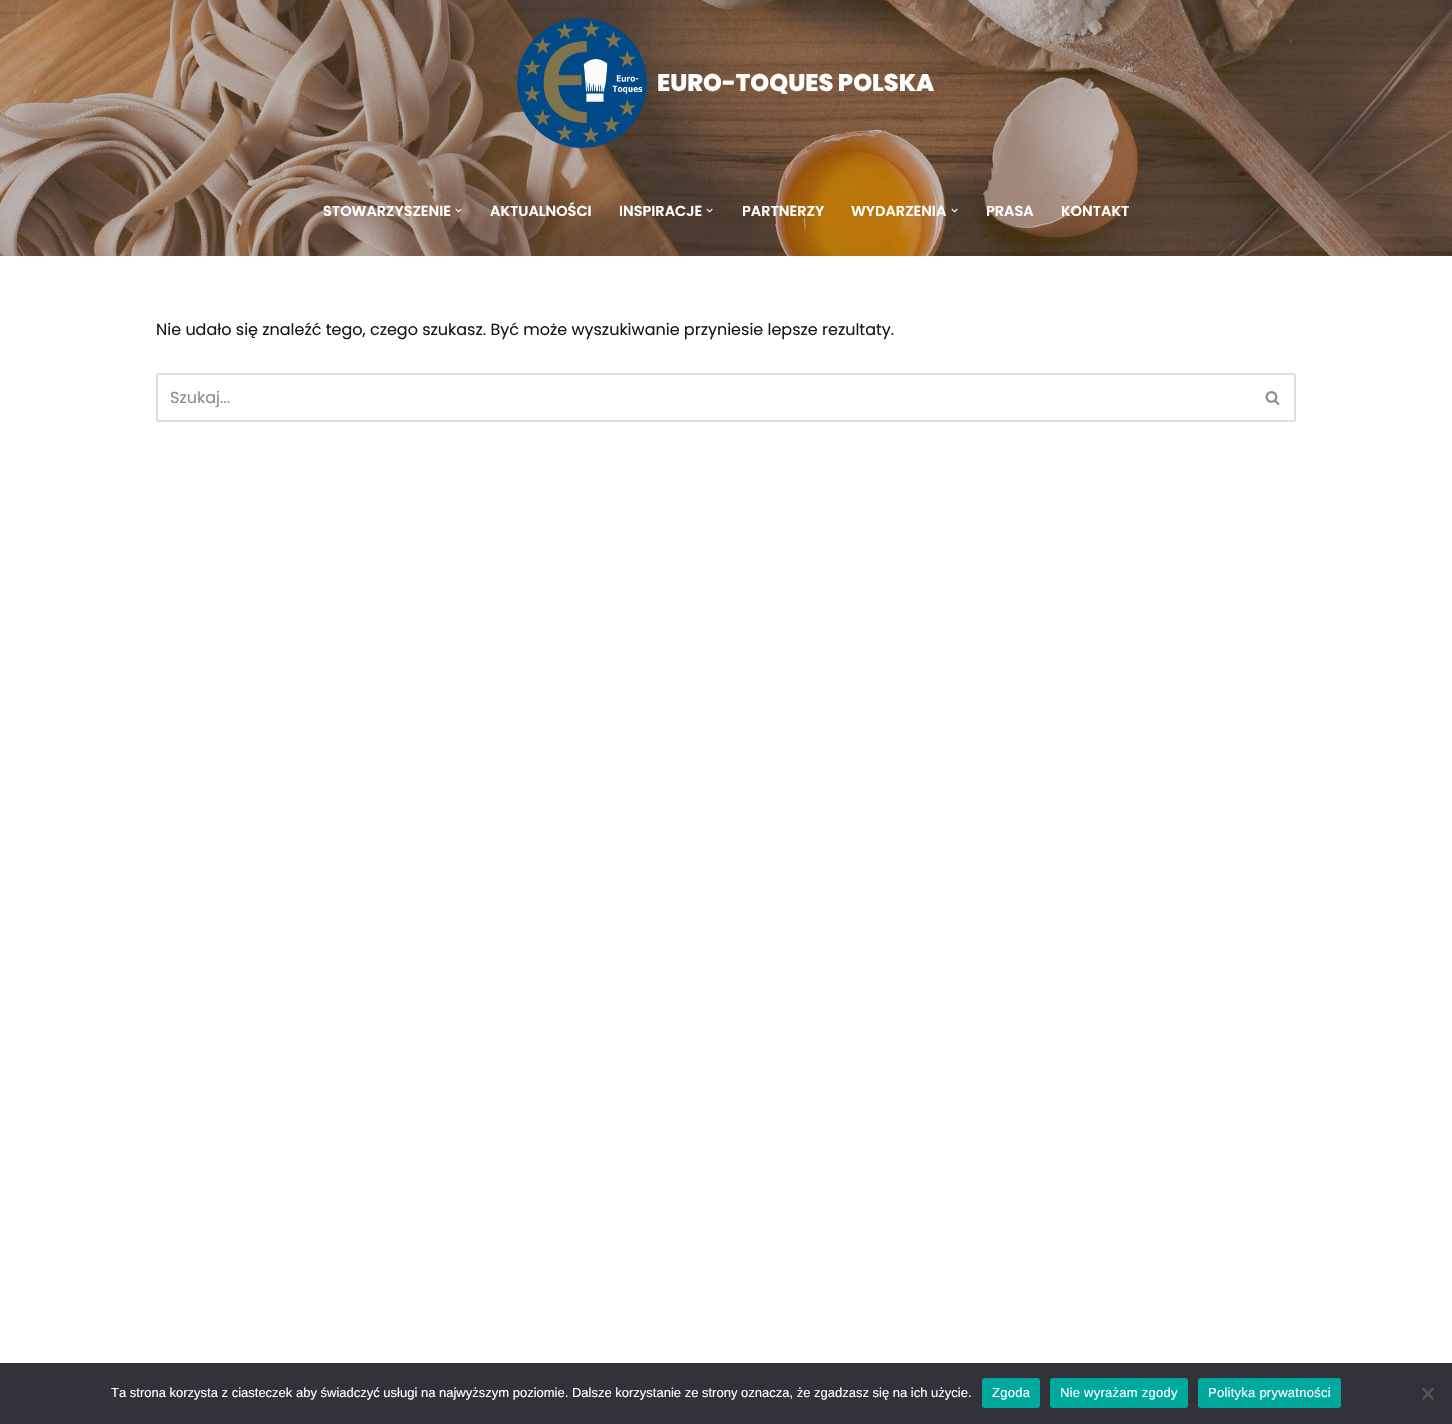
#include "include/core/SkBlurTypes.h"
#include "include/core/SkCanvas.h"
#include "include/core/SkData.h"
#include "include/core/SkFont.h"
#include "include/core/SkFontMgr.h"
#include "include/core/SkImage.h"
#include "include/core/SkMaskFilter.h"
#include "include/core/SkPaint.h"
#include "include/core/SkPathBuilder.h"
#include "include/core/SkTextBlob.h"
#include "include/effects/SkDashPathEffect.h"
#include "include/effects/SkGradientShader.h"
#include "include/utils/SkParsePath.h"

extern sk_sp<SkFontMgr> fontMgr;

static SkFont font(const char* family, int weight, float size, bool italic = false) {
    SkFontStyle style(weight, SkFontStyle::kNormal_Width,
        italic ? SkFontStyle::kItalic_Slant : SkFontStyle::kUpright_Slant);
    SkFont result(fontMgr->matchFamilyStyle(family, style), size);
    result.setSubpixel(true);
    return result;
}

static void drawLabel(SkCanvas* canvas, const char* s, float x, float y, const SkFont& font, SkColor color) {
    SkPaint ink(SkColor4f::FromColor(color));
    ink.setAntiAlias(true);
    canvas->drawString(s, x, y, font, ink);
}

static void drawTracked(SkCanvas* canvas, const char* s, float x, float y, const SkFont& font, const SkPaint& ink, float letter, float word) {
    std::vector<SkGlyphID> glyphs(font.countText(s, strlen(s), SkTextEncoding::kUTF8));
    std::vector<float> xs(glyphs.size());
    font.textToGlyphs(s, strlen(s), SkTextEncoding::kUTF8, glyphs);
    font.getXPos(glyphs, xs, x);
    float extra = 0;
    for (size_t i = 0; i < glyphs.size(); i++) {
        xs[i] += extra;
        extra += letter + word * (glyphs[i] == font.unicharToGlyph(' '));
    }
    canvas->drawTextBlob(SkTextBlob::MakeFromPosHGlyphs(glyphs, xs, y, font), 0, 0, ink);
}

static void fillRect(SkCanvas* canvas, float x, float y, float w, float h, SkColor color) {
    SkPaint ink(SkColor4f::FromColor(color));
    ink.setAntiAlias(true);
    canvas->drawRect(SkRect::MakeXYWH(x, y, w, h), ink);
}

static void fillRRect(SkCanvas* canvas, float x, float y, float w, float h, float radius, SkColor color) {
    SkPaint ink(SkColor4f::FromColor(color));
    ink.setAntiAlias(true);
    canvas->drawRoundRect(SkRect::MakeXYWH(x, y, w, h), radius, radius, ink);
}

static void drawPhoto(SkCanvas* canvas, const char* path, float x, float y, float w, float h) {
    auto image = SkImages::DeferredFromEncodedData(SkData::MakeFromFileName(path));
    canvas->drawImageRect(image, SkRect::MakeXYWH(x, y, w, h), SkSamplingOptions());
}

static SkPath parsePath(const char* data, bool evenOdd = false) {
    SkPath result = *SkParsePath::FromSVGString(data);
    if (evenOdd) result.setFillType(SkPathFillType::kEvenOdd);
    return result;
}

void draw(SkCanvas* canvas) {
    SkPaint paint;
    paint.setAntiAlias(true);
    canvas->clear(0xFFFFFFFF);
    drawPhoto(canvas, "assets/img1.png", 0, 0, 1452, 256);
    fillRect(canvas, 0, 0, 1452, 166, 0x1F362B2B);
    drawPhoto(canvas, "assets/img2.png", 517, 18, 130, 130);
    SkFont font1 = font("Poppins", 800, 24);
    drawLabel(canvas, "EURO-TOQUES POLSKA", 657, 91, font1, 0xFFFEFEFE);
    fillRect(canvas, 0, 166, 1452, 90, 0x1F362B2B);
    SkFont font2 = font("Poppins", 600, 14.5f);
    drawLabel(canvas, "STOWARZYSZENIE", 323, 216, font2, 0xFFFEFEFE);
    drawPhoto(canvas, "assets/img3.png", 455, 208, 7, 5);
    drawLabel(canvas, "AKTUALNOŚCI", 490, 216, font2, 0xFFFEFEFE);
    drawLabel(canvas, "INSPIRACJE", 619, 216, font2, 0xFFFEFEFE);
    drawPhoto(canvas, "assets/img4.png", 706, 208, 7, 5);
    drawLabel(canvas, "PARTNERZY", 742, 216, font2, 0xFFFEFEFE);
    drawLabel(canvas, "WYDARZENIA", 851, 216, font2, 0xFFFEFEFE);
    drawPhoto(canvas, "assets/img5.png", 951, 208, 7, 5);
    drawLabel(canvas, "PRASA", 986, 216, font2, 0xFFFEFEFE);
    drawLabel(canvas, "KONTAKT", 1061, 216, font2, 0xFFFEFEFE);
    SkFont font3 = font("Poppins", 400, 16);
    drawLabel(canvas, "Nie udało się znaleźć tego, czego szukasz. Być może wyszukiwanie przyniesie lepsze rezultaty.", 156, 335, font3, 0xFF14171C);
    paint.setColor(0xFFDDDDDD);
    canvas->drawPath(parsePath("M159 373H1251V422H159C157 422 156 421 156 419V376C156 374 157 373 159 373ZM159 375H1251V420H159C158 420 158 420 158 419V376C158 375 158 375 159 375Z", true), paint);
    drawLabel(canvas, "Szukaj...", 170, 403, font3, 0xFF8A8B8E);
    canvas->drawPath(parsePath("M1251 373H1293C1295 373 1296 374 1296 376V419C1296 421 1295 422 1293 422H1251ZM1251 375H1293C1294 375 1294 375 1294 376V419C1294 420 1294 420 1293 420H1251Z", true), paint);
    drawPhoto(canvas, "assets/img6.png", 1265, 391, 15, 14);
    fillRect(canvas, 0, 1363, 1452, 61, 0xFF32323A);
    SkFont font4 = font("Liberation Sans", 400, 13);
    drawLabel(canvas, "Ta strona korzysta z ciasteczek aby świadczyć usługi na najwyższym poziomie. Dalsze korzystanie ze strony oznacza, że zgadzasz się na ich użycie.", 111, 1397, font4, 0xFFFEFEFE);
    fillRRect(canvas, 982, 1378, 58, 30, 3, 0xFF00A99D);
    paint.setColor(0xFFFEFEFE);
    drawTracked(canvas, "Zgoda", 992, 1397, font4, paint, 0.25f, 0);
    fillRRect(canvas, 1050, 1378, 138, 30, 3, 0xFF00A99D);
    drawTracked(canvas, "Nie wyrażam zgody", 1060, 1397, font4, paint, 0.25f, 0);
    fillRRect(canvas, 1198, 1378, 143, 30, 3, 0xFF00A99D);
    drawTracked(canvas, "Polityka prywatności", 1208, 1397, font4, paint, 0.25f, 0);
    paint.setColor(0xFF59595D);
    canvas->drawPath(parsePath("M1432.5 1387.5L1434 1389L1423.5 1400L1422 1398.5Z"), paint);
    canvas->drawPath(parsePath("M1422 1389L1423.5 1387.5L1434 1398.5L1432.5 1400Z"), paint);
}
